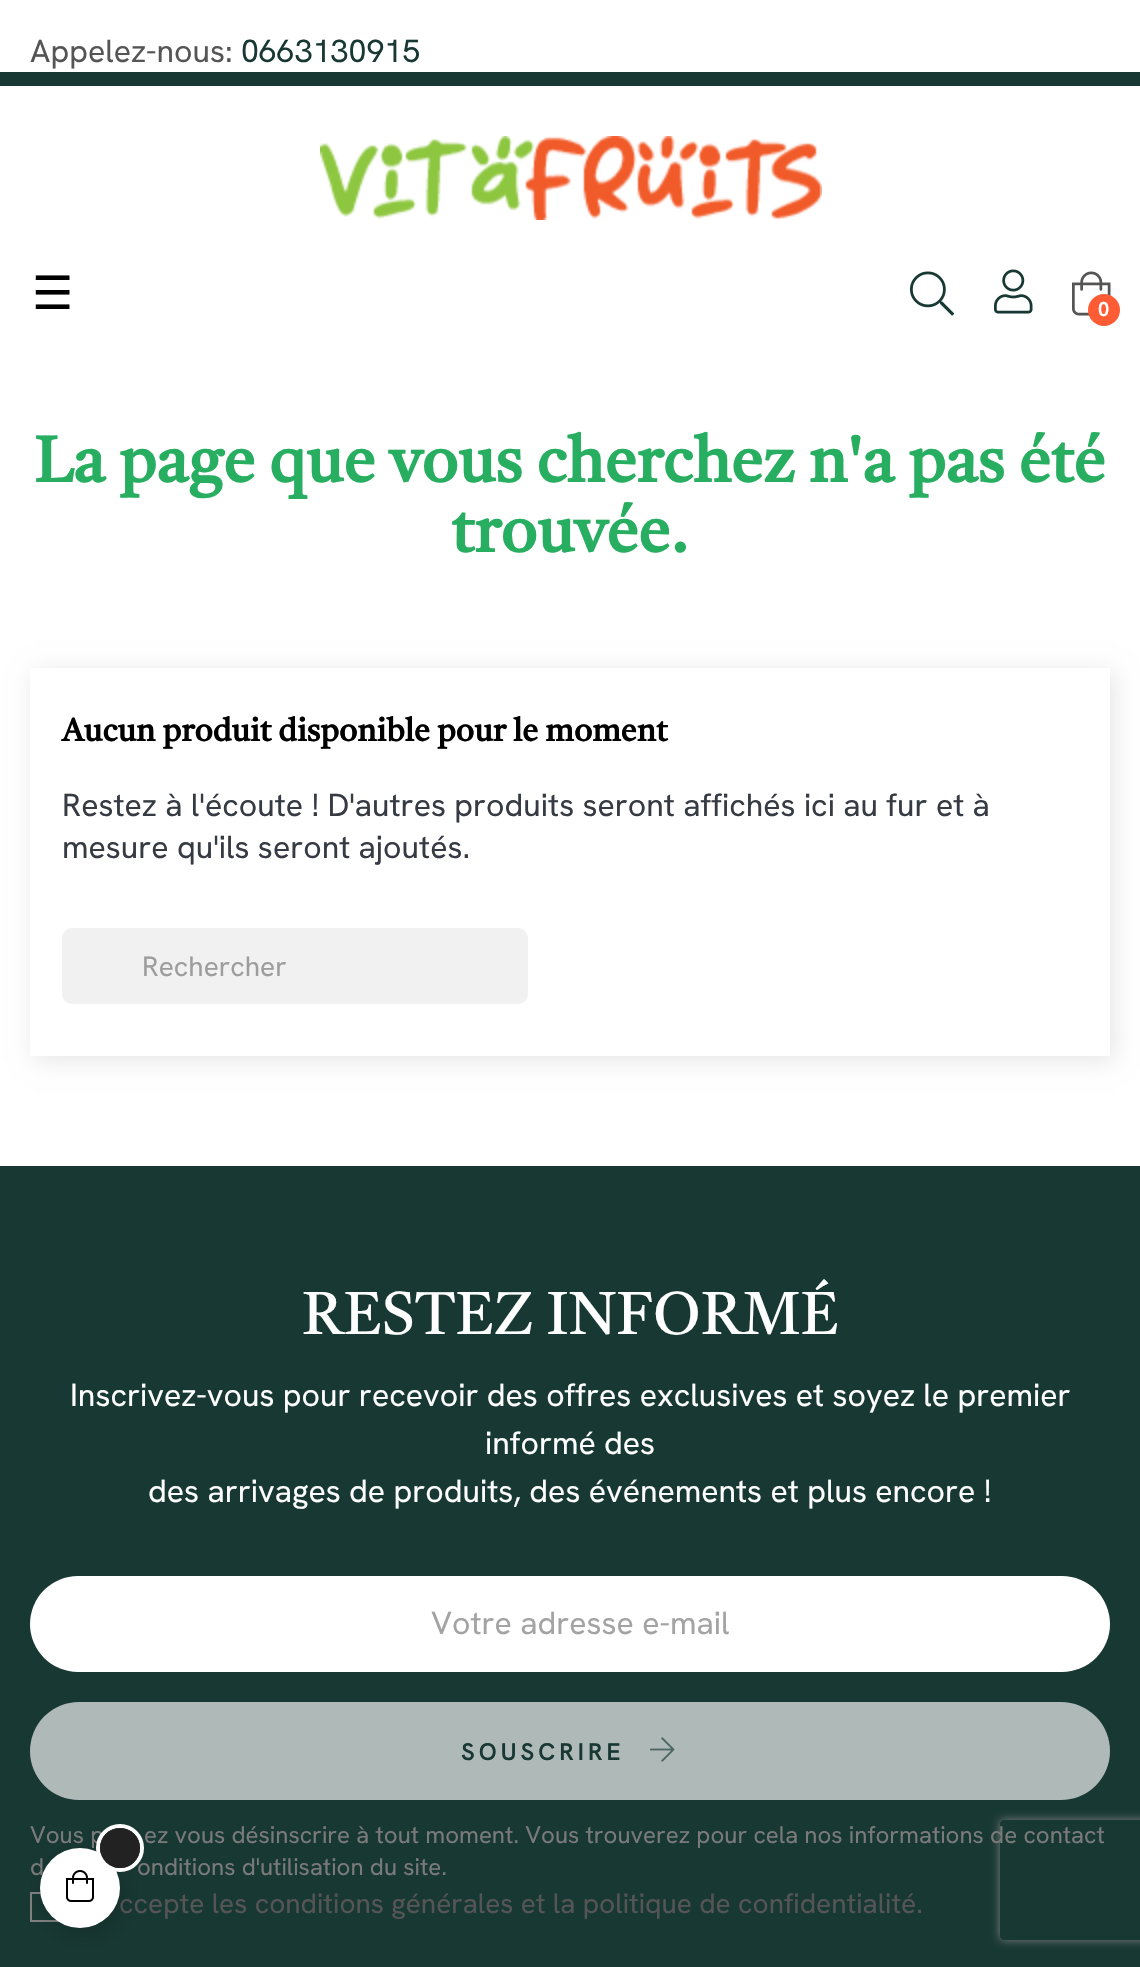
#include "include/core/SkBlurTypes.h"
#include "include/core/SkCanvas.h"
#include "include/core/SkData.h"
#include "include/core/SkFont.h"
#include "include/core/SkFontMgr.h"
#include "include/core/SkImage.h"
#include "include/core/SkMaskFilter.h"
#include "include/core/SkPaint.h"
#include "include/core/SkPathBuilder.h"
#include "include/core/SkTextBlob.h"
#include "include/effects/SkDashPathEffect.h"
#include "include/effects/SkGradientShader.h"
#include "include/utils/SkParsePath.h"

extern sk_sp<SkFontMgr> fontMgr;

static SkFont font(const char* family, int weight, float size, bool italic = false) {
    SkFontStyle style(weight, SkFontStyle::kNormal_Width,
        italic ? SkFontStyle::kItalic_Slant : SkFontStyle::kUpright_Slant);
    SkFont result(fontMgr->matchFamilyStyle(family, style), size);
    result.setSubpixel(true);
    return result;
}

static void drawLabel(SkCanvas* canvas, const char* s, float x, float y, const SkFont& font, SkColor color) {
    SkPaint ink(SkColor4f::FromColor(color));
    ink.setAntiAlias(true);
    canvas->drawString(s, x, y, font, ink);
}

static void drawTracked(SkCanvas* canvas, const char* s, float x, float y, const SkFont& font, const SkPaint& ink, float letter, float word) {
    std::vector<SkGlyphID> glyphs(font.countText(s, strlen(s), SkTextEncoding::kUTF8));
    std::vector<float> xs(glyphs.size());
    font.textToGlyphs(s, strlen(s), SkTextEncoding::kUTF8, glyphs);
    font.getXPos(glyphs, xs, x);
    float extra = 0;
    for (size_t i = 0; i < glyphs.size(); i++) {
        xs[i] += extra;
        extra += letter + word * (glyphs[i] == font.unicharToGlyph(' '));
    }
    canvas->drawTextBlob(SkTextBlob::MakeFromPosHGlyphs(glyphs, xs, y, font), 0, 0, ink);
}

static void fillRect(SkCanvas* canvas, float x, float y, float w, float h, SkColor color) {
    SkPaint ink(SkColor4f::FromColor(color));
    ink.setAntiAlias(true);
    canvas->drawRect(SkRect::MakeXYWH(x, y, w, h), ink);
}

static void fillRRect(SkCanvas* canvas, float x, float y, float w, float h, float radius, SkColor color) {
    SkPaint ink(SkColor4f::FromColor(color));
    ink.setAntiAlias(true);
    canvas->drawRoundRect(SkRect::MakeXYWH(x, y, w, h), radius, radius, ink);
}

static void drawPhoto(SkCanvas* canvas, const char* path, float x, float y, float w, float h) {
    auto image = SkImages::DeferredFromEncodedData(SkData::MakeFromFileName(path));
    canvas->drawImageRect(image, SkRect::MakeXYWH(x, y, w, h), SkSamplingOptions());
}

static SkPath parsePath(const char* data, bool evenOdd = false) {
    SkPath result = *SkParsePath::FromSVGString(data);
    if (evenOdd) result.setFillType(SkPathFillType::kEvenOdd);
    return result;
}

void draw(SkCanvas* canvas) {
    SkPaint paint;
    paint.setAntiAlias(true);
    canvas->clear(0xFFFFFFFF);
    SkFont font1 = font("Hanken Grotesk", 400, 32);
    drawLabel(canvas, "Appelez-nous:", 30, 62, font1, 0xFF555555);
    drawLabel(canvas, "0663130915", 241, 62, font1, 0xFF183833);
    fillRect(canvas, 0, 72, 1140, 14, 0xFF183833);
    drawPhoto(canvas, "assets/img1.png", 320, 136, 502, 84);
    SkFont font2 = font("DejaVu Sans", 400, 46);
    drawLabel(canvas, "☰", 32, 309, font2, 0xFF000000);
    drawPhoto(canvas, "assets/img2.png", 910, 271, 44, 45);
    drawPhoto(canvas, "assets/img3.png", 994, 269, 39, 45);
    drawPhoto(canvas, "assets/img4.png", 1072, 271, 39, 45);
    paint.setColor(0xFFFF5C35);
    canvas->drawCircle(1104, 310, 16, paint);
    SkFont font3 = font("Hanken Grotesk", 600, 20);
    drawLabel(canvas, "0", 1098, 316, font3, 0xFFFFFFFF);
    SkFont font4 = font("Castoro", 700, 64);
    drawLabel(canvas, "La page que vous cherchez n'a pas été", 34, 482, font4, 0xFF27AE60);
    drawLabel(canvas, "trouvée.", 451, 552, font4, 0xFF27AE60);
    canvas->save();
    canvas->clipPath(parsePath("M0 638H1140V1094H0ZM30 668H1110V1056H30Z", true), true);
    paint.setColor(0x1A000000);
    paint.setMaskFilter(SkMaskFilter::MakeBlur(kNormal_SkBlurStyle, 11));
    canvas->drawRect(SkRect::MakeXYWH(34, 672, 1080, 388), paint);
    paint.setMaskFilter(nullptr);
    canvas->restore();
    SkFont font5 = font("Castoro", 700, 32);
    drawLabel(canvas, "Aucun produit disponible pour le moment", 62, 741, font5, 0xFF000000);
    drawLabel(canvas, "Restez à l'écoute ! D'autres produits seront affichés ici au fur et à", 62, 816, font1, 0xFF363A42);
    drawLabel(canvas, "mesure qu'ils seront ajoutés.", 62, 858, font1, 0xFF363A42);
    fillRRect(canvas, 62, 928, 466, 76, 10, 0xFFF1F1F1);
    SkFont font6 = font("Hanken Grotesk", 400, 28);
    drawLabel(canvas, "Rechercher", 142, 976, font6, 0xFF9D9D9D);
    fillRect(canvas, 0, 1166, 1140, 801, 0xFF183833);
    SkFont font7 = font("Castoro", 400, 60);
    drawLabel(canvas, "RESTEZ INFORMÉ", 302, 1334, font7, 0xFFFFFFFF);
    drawLabel(canvas, "Inscrivez-vous pour recevoir des offres exclusives et soyez le premier", 70, 1406, font1, 0xFFFFFFFF);
    drawLabel(canvas, "informé des", 485, 1454, font1, 0xFFFFFFFF);
    drawLabel(canvas, "des arrivages de produits, des événements et plus encore !", 148, 1502, font1, 0xFFFFFFFF);
    fillRRect(canvas, 30, 1576, 1080, 96, 48, 0xFFFFFFFF);
    drawLabel(canvas, "Votre adresse e-mail", 431, 1634, font1, 0xFFA3A3A3);
    fillRRect(canvas, 30, 1702, 1080, 98, 49, 0xFFAEB9B8);
    SkFont font8 = font("Hanken Grotesk", 600, 24);
    paint.setColor(0xFF183833);
    drawTracked(canvas, "SOUSCRIRE", 461, 1760, font8, paint, 4, 0);
    drawPhoto(canvas, "assets/img5.png", 650, 1737, 25, 25);
    SkFont font9 = font("Hanken Grotesk", 400, 24);
    drawLabel(canvas, "Vous p", 30, 1843, font9, 0xFF7A7A7A);
    drawLabel(canvas, "ez vous désinscrire à tout moment. Vous trouverez pour cela nos informations de contact", 144, 1843, font9, 0xFF7A7A7A);
    drawLabel(canvas, "d", 30, 1875, font9, 0xFF7A7A7A);
    drawLabel(canvas, "onditions d'utilisation du site.", 137, 1875, font9, 0xFF7A7A7A);
    paint.setStroke(true);
    paint.setStrokeWidth(2);
    paint.setColor(0xFF808080);
    canvas->drawRect(SkRect::MakeXYWH(31, 1893, 28, 28), paint);
    drawLabel(canvas, "ccepte les conditions générales et la politique de confidentialité.", 119, 1913, font6, 0xFF555555);
    paint.setStroke(false);
    paint.setColor(0x26000000);
    paint.setMaskFilter(SkMaskFilter::MakeBlur(kNormal_SkBlurStyle, 10));
    canvas->drawRoundRect(SkRect::MakeXYWH(44, 1854, 80, 80), 40, 40, paint);
    paint.setMaskFilter(nullptr);
    paint.setColor(0xFFFFFFFF);
    canvas->drawCircle(80, 1888, 40, paint);
    drawPhoto(canvas, "assets/img6.png", 66, 1870, 28, 32);
    paint.setStroke(true);
    paint.setStrokeWidth(4);
    canvas->drawCircle(120, 1848, 22, paint);
    paint.setStroke(false);
    paint.setColor(0xFF222222);
    canvas->drawCircle(120, 1848, 20, paint);
    canvas->save();
    canvas->clipPath(parsePath("M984 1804H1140V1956H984ZM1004 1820H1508C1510 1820 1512 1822 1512 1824V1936C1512 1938 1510 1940 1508 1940H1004C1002 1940 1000 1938 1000 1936V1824C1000 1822 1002 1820 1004 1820Z", true), true);
    paint.setColor(0xFF808080);
    paint.setMaskFilter(SkMaskFilter::MakeBlur(kNormal_SkBlurStyle, 5));
    canvas->drawRoundRect(SkRect::MakeXYWH(1000, 1820, 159, 120), 4, 4, paint);
    paint.setMaskFilter(nullptr);
    canvas->restore();
}
